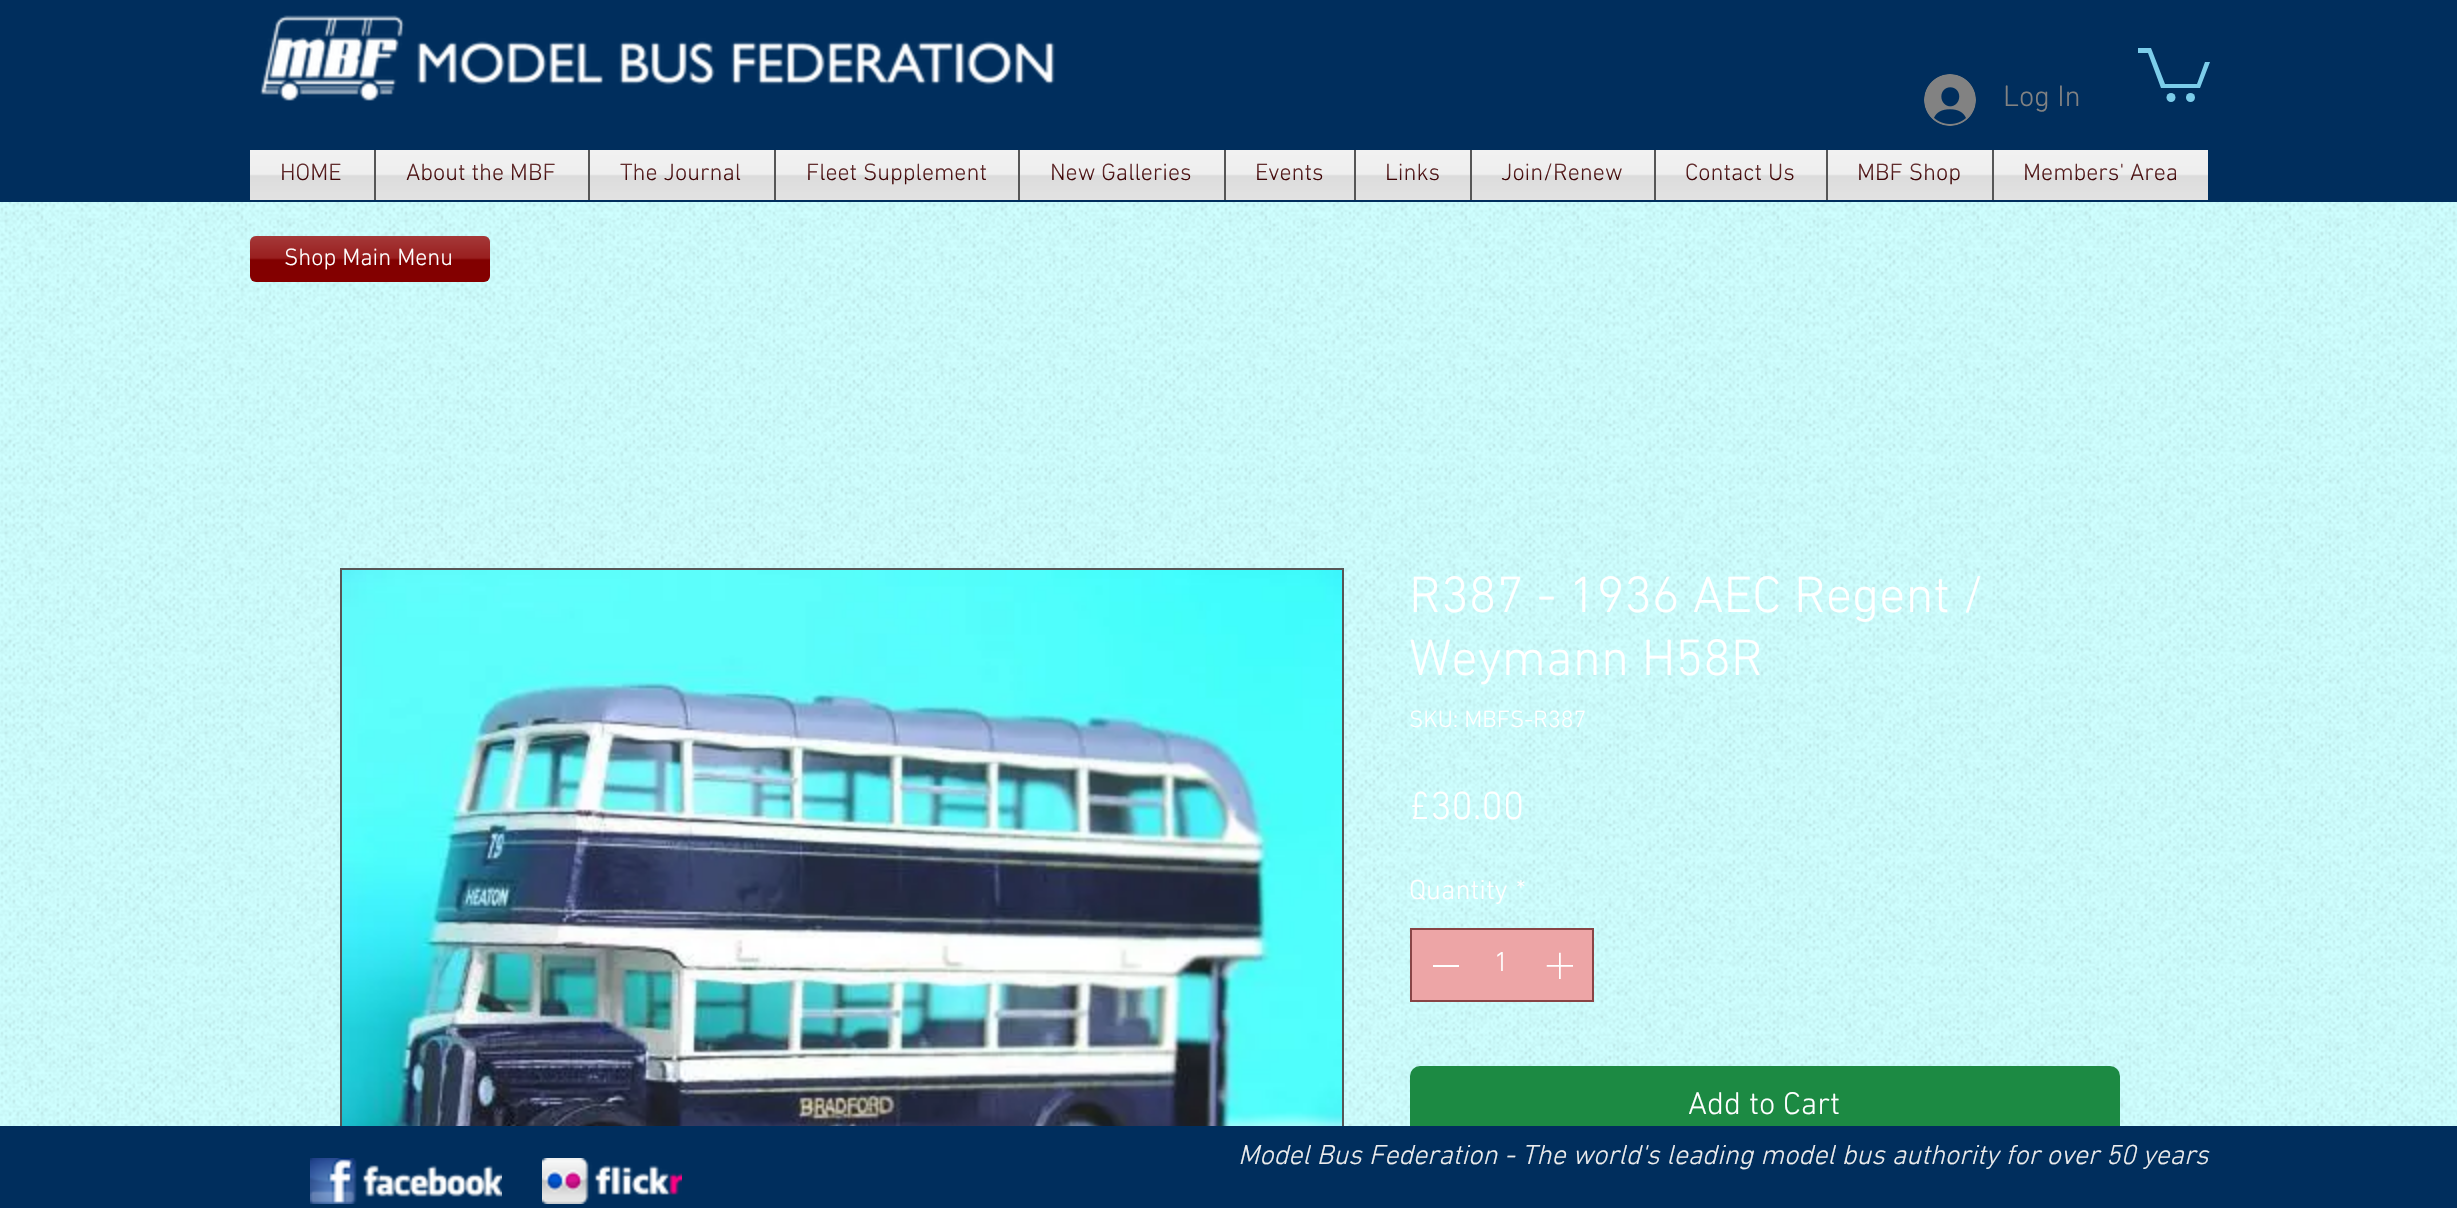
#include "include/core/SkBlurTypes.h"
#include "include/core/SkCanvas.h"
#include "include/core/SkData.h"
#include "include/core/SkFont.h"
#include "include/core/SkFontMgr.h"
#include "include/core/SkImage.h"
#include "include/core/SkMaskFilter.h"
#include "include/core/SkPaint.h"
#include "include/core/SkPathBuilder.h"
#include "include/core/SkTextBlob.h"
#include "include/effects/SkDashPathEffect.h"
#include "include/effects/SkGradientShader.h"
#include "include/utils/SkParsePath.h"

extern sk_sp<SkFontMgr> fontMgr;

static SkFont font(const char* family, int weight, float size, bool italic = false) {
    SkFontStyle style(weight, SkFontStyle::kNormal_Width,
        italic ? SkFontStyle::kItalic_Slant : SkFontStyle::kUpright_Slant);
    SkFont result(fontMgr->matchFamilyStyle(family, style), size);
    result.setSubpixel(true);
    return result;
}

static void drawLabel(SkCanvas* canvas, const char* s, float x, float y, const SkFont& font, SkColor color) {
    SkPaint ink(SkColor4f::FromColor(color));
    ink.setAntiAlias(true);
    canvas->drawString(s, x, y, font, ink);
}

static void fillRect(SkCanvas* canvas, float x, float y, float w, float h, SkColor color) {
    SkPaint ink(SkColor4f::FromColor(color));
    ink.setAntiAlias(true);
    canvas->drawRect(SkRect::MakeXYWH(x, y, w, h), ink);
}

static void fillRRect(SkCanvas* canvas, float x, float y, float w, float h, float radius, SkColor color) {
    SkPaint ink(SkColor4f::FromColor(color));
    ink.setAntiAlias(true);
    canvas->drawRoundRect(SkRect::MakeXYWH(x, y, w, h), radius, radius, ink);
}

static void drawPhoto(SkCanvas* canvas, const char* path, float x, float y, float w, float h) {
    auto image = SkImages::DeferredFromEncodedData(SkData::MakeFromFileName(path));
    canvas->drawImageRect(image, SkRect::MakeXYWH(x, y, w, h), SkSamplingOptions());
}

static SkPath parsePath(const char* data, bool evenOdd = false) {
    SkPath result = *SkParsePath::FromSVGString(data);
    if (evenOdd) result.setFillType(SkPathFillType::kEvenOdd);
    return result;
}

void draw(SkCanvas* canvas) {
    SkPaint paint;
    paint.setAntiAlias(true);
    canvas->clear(0xFFCFFFFF);
    fillRect(canvas, 0, 0, 2457, 202, 0xFF002E5D);
    drawPhoto(canvas, "assets/img1.png", 260, 15, 795, 86);
    drawPhoto(canvas, "assets/img2.png", 1924, 74, 52, 52);
    SkFont font1 = font("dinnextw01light", 300, 30);
    drawLabel(canvas, "Log In", 2003, 106, font1, 0xFF828282);
    paint.setColor(0xFF7CCDEA);
    canvas->drawPath(parsePath("M2210 62L2200 88H2161L2148 53H2138V48H2151L2165 84H2197L2205 62"), paint);
    canvas->drawCircle(2190.5f, 97.5f, 4.5f, paint);
    canvas->drawCircle(2171, 97.5f, 4.5f, paint);
    fillRect(canvas, 250, 150, 124, 50, 0xFFEDEDED);
    SkFont font2 = font("dinnextw01light", 300, 24);
    drawLabel(canvas, "HOME", 280, 180, font2, 0xFF440506);
    drawPhoto(canvas, "assets/img3.png", 250, 150, 124, 50);
    fillRect(canvas, 376, 150, 212, 50, 0xFFEDEDED);
    fillRect(canvas, 374, 150, 2, 50, 0xFF565656);
    drawLabel(canvas, "About the MBF", 406, 180, font2, 0xFF440506);
    drawPhoto(canvas, "assets/img4.png", 376, 150, 212, 50);
    fillRect(canvas, 590, 150, 184, 50, 0xFFEDEDED);
    fillRect(canvas, 588, 150, 2, 50, 0xFF565656);
    drawLabel(canvas, "The Journal", 620, 180, font2, 0xFF440506);
    drawPhoto(canvas, "assets/img5.png", 590, 150, 184, 50);
    fillRect(canvas, 776, 150, 242, 50, 0xFFEDEDED);
    fillRect(canvas, 774, 150, 2, 50, 0xFF565656);
    drawLabel(canvas, "Fleet Supplement", 806, 180, font2, 0xFF440506);
    drawPhoto(canvas, "assets/img6.png", 776, 150, 242, 50);
    fillRect(canvas, 1020, 150, 204, 50, 0xFFEDEDED);
    fillRect(canvas, 1018, 150, 2, 50, 0xFF565656);
    drawLabel(canvas, "New Galleries", 1050, 180, font2, 0xFF440506);
    drawPhoto(canvas, "assets/img7.png", 1020, 150, 204, 50);
    fillRect(canvas, 1226, 150, 128, 50, 0xFFEDEDED);
    fillRect(canvas, 1224, 150, 2, 50, 0xFF565656);
    drawLabel(canvas, "Events", 1255, 180, font2, 0xFF440506);
    drawPhoto(canvas, "assets/img8.png", 1226, 150, 128, 50);
    fillRect(canvas, 1356, 150, 114, 50, 0xFFEDEDED);
    fillRect(canvas, 1354, 150, 2, 50, 0xFF565656);
    drawLabel(canvas, "Links", 1385, 180, font2, 0xFF440506);
    drawPhoto(canvas, "assets/img9.png", 1356, 150, 114, 50);
    fillRect(canvas, 1472, 150, 182, 50, 0xFFEDEDED);
    fillRect(canvas, 1470, 150, 2, 50, 0xFF565656);
    drawLabel(canvas, "Join/Renew", 1501, 180, font2, 0xFF440506);
    drawPhoto(canvas, "assets/img10.png", 1472, 150, 182, 50);
    fillRect(canvas, 1656, 150, 170, 50, 0xFFEDEDED);
    fillRect(canvas, 1654, 150, 2, 50, 0xFF565656);
    drawLabel(canvas, "Contact Us", 1685, 180, font2, 0xFF440506);
    drawPhoto(canvas, "assets/img11.png", 1656, 150, 170, 50);
    fillRect(canvas, 1828, 150, 164, 50, 0xFFEDEDED);
    fillRect(canvas, 1826, 150, 2, 50, 0xFF565656);
    drawLabel(canvas, "MBF Shop", 1857, 180, font2, 0xFF440506);
    drawPhoto(canvas, "assets/img12.png", 1828, 150, 164, 50);
    fillRect(canvas, 1994, 150, 214, 50, 0xFFEDEDED);
    fillRect(canvas, 1992, 150, 2, 50, 0xFF565656);
    drawLabel(canvas, "Members' Area", 2023, 180, font2, 0xFF440506);
    drawPhoto(canvas, "assets/img13.png", 1994, 150, 214, 50);
    drawPhoto(canvas, "assets/img19.png", 0, 202, 2457, 924);
    fillRRect(canvas, 250, 236, 240, 46, 6, 0xFF8B0000);
    drawPhoto(canvas, "assets/img14.png", 250, 236, 240, 46);
    drawLabel(canvas, "Shop Main Menu", 284, 265, font2, 0xFFFFFFFF);
    paint.setStroke(true);
    paint.setStrokeWidth(2);
    paint.setColor(0xFF565656);
    canvas->drawRect(SkRect::MakeXYWH(341, 569, 1002, 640), paint);
    drawPhoto(canvas, "assets/img15.png", 342, 570, 1000, 556);
    SkFont font3 = font("dinnextw01light", 300, 52);
    drawLabel(canvas, "R387 - 1936 AEC Regent /", 1409, 612, font3, 0xFFFFFFFF);
    drawLabel(canvas, "Weymann H58R", 1409, 675, font3, 0xFFFFFFFF);
    drawLabel(canvas, "SKU: MBFS-R387", 1409, 727, font2, 0xFFFFFFFF);
    SkFont font4 = font("dinnextw01light", 300, 40);
    drawLabel(canvas, "£30.00", 1409, 819, font4, 0xFFFFFFFF);
    SkFont font5 = font("dinnextw01light", 300, 28);
    drawLabel(canvas, "Quantity", 1409, 899, font5, 0xFFFFFFFF);
    drawLabel(canvas, "*", 1516, 899, font5, 0xFFFFFFFF);
    paint.setStroke(false);
    paint.setColor(0xFFEDA5A6);
    canvas->drawRect(SkRect::MakeXYWH(1411, 929, 182, 72), paint);
    paint.setStroke(true);
    paint.setColor(0xFF884546);
    canvas->drawRect(SkRect::MakeXYWH(1411, 929, 182, 72), paint);
    fillRect(canvas, 1433, 965, 26, 2, 0xFFFFFFFF);
    drawLabel(canvas, "1", 1494, 971, font5, 0xFFFFFFFF);
    drawPhoto(canvas, "assets/img16.png", 1546, 952, 27, 27);
    fillRRect(canvas, 1410, 1066, 710, 80, 10, 0xFF1C8A43);
    SkFont font6 = font("dinnextw01light", 300, 32);
    drawLabel(canvas, "Add to Cart", 1688, 1114, font6, 0xFFFFFFFF);
    fillRect(canvas, 0, 1126, 2457, 82, 0xFF002E5D);
    drawPhoto(canvas, "assets/img17.png", 310, 1158, 192, 46);
    drawPhoto(canvas, "assets/img18.png", 542, 1158, 140, 46);
    SkFont font7 = font("dinnextw01light", 300, 28, true);
    drawLabel(canvas, "Model Bus Federation - The world's leading model bus authority for over 50 years", 1238, 1164, font7, 0xFFEDEDED);
}
